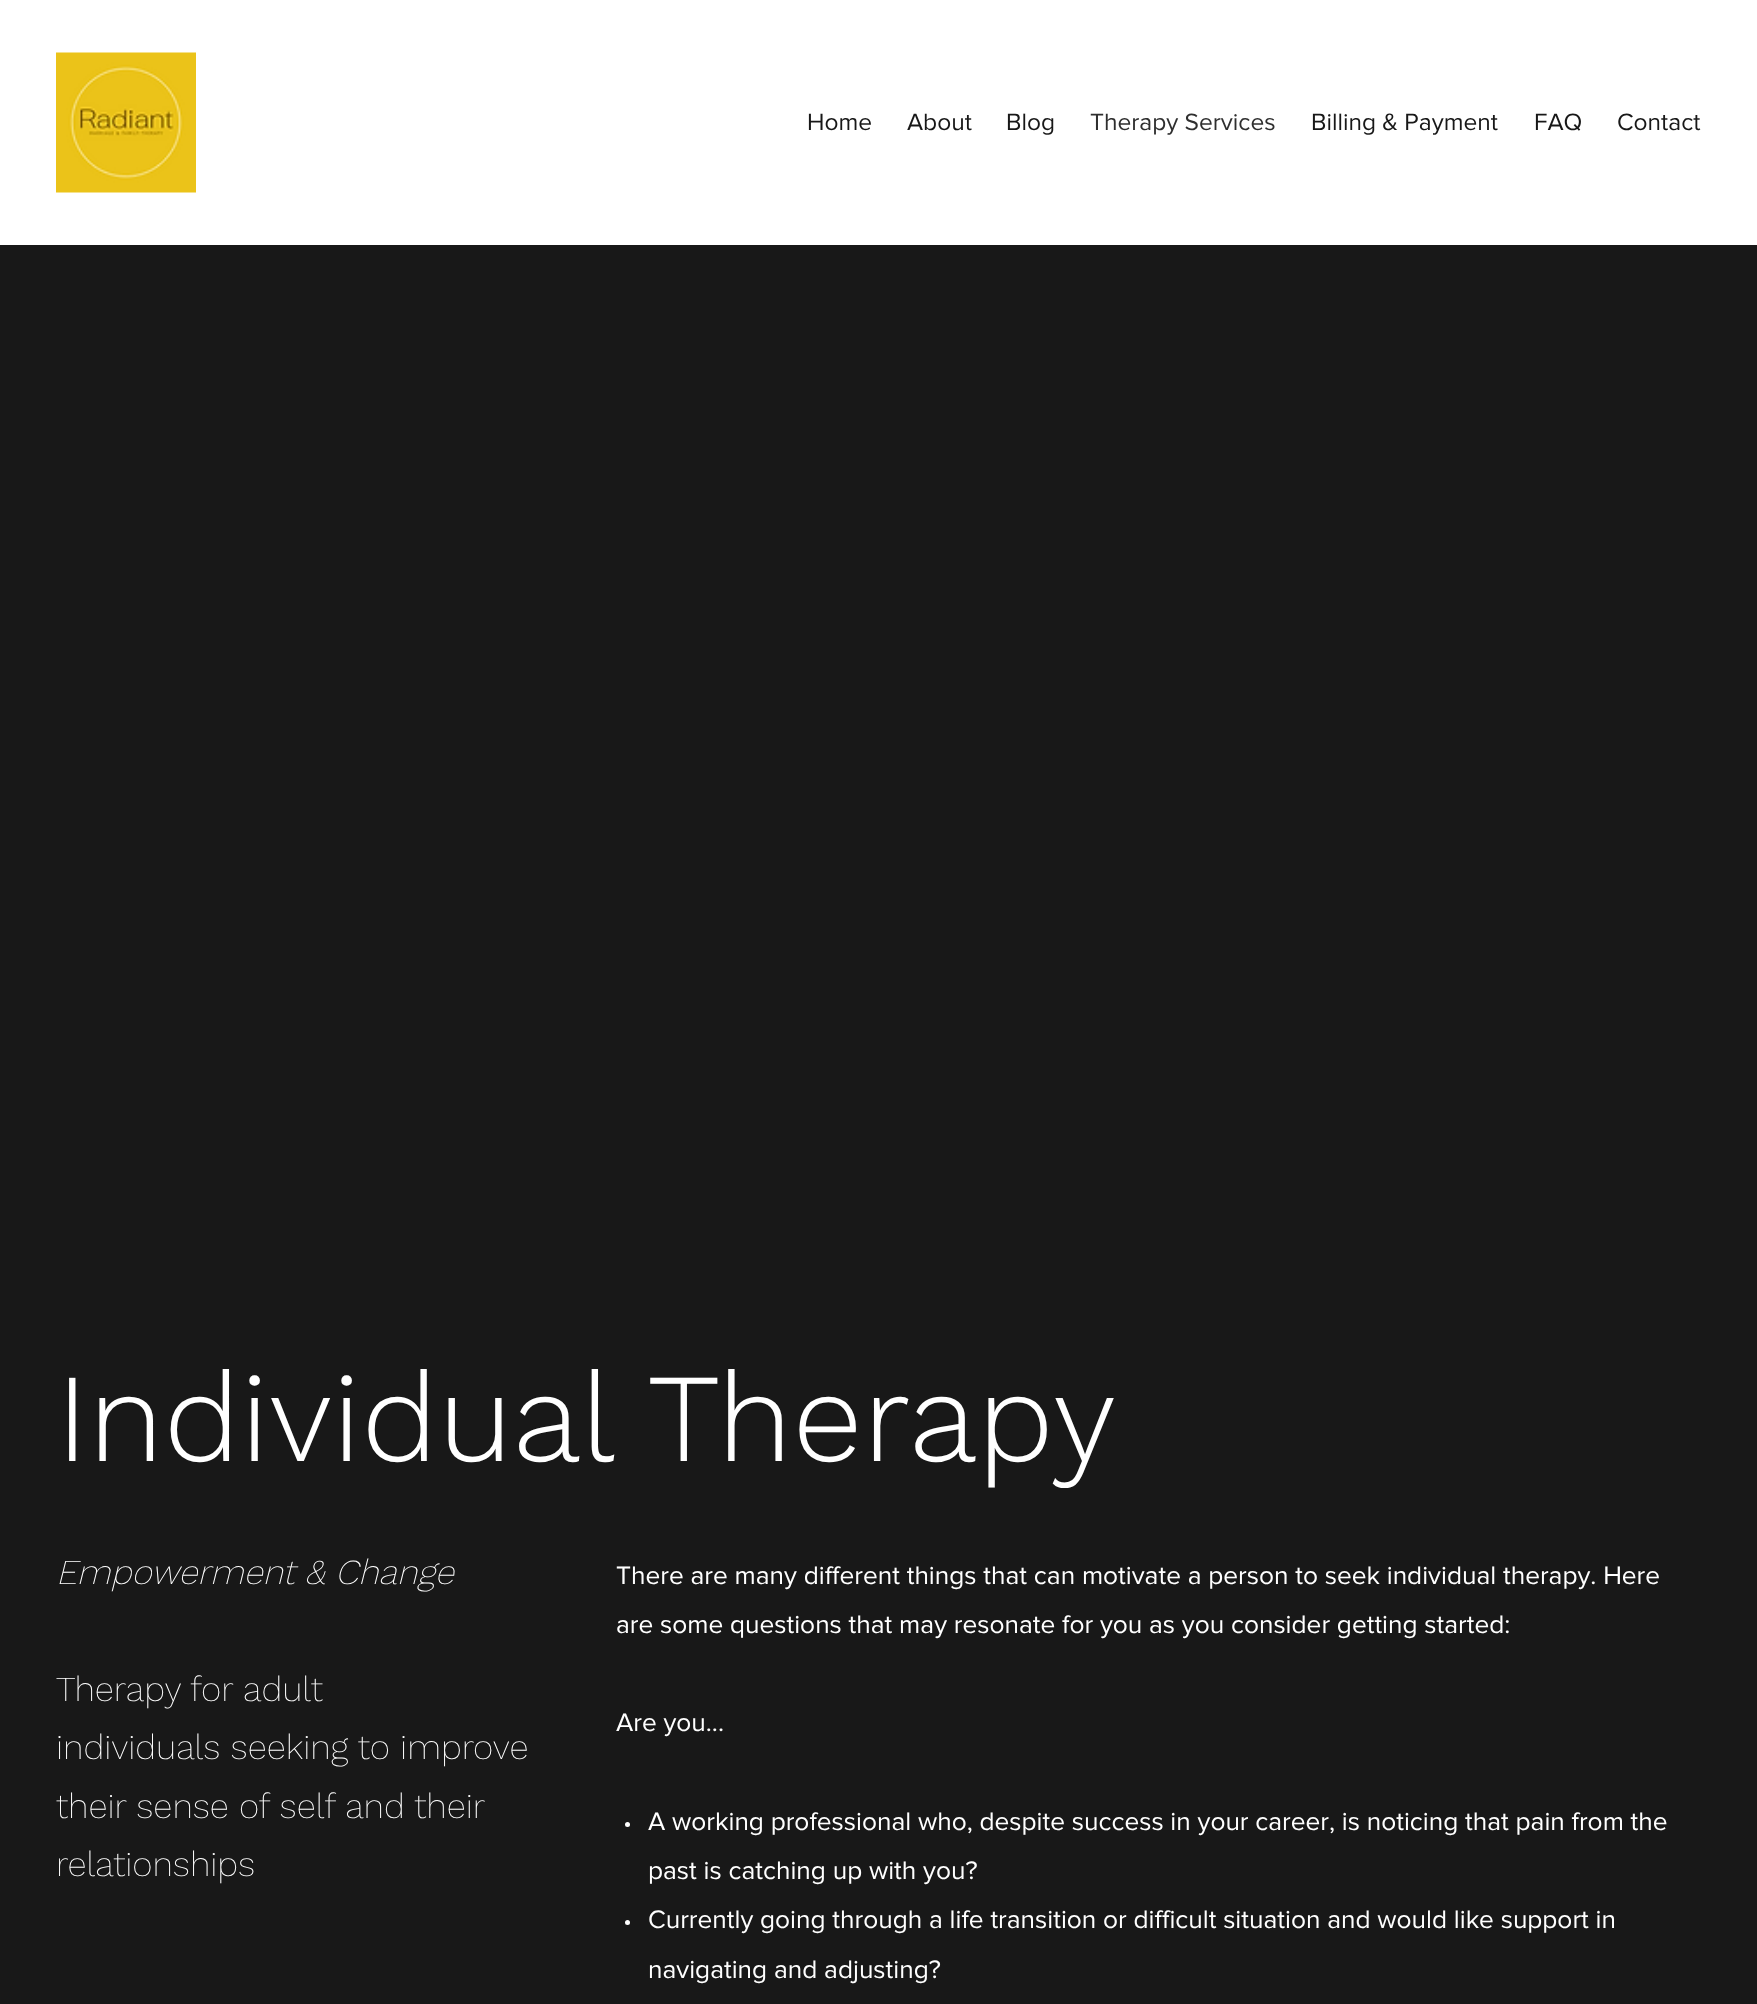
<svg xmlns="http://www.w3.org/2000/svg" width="1757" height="2004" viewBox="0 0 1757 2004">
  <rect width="100%" height="100%" fill="rgb(255,255,255)"/>
  <image x="56" y="52" width="140" height="141" href="pic1.png"/>
  <g font-family="'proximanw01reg'" font-size="24.5" fill="rgb(24,24,24)">
    <text x="807" y="130">Home</text>
    <text x="907" y="130">About</text>
    <text x="1006" y="130">Blog</text>
  </g>
  <text x="1090" y="130" font-family="'proximanw01reg'" font-size="24.5" fill="rgb(47,47,47)">Therapy Services</text>
  <g font-family="'proximanw01reg'" font-size="24.5" fill="rgb(24,24,24)">
    <text x="1311" y="130">Billing &amp; Payment</text>
    <text x="1534" y="130">FAQ</text>
    <text x="1617" y="130">Contact</text>
  </g>
  <rect x="0" y="245" width="1757" height="1759" fill="rgb(24,24,24)"/>
  <text x="56" y="1461" font-family="Work Sans" font-size="126" font-weight="300" fill="rgb(255,255,255)">Individual Therapy</text>
  <text x="56" y="1584" font-family="Work Sans" font-size="35" font-weight="200" font-style="italic" fill="rgb(255,255,255)">Empowerment &amp; Change</text>
  <g font-family="Work Sans" font-size="35" font-weight="200" fill="rgb(255,255,255)">
    <text>
      <tspan x="56" y="1701">Therapy for adult</tspan>
      <tspan x="56" y="1759">individuals seeking to improve</tspan>
      <tspan x="56" y="1818">their sense of self and their</tspan>
      <tspan x="56" y="1876">relationships</tspan>
    </text>
  </g>
  <g font-family="'proximanw01reg'" font-size="26.25" fill="rgb(255,255,255)">
    <text>
      <tspan x="616" y="1584">There are many different things that can motivate a person to seek individual therapy. Here</tspan>
      <tspan x="616" y="1633">are some questions that may resonate for you as you consider getting started:</tspan>
    </text>
    <text x="616" y="1731">Are you...</text>
  </g>
  <circle cx="627.5" cy="1824.5" r="2.5" fill="rgb(255,255,255)"/>
  <g font-family="'proximanw01reg'" font-size="26.25" fill="rgb(255,255,255)">
    <text>
      <tspan x="648" y="1830">A working professional who, despite success in your career, is noticing that pain from the</tspan>
      <tspan x="648" y="1879">past is catching up with you?</tspan>
    </text>
  </g>
  <circle cx="627.5" cy="1922.5" r="2.5" fill="rgb(255,255,255)"/>
  <g font-family="'proximanw01reg'" font-size="26.25" fill="rgb(255,255,255)">
    <text>
      <tspan x="648" y="1928">Currently going through a life transition or difficult situation and would like support in</tspan>
      <tspan x="648" y="1978">navigating and adjusting?</tspan>
    </text>
  </g>
</svg>
